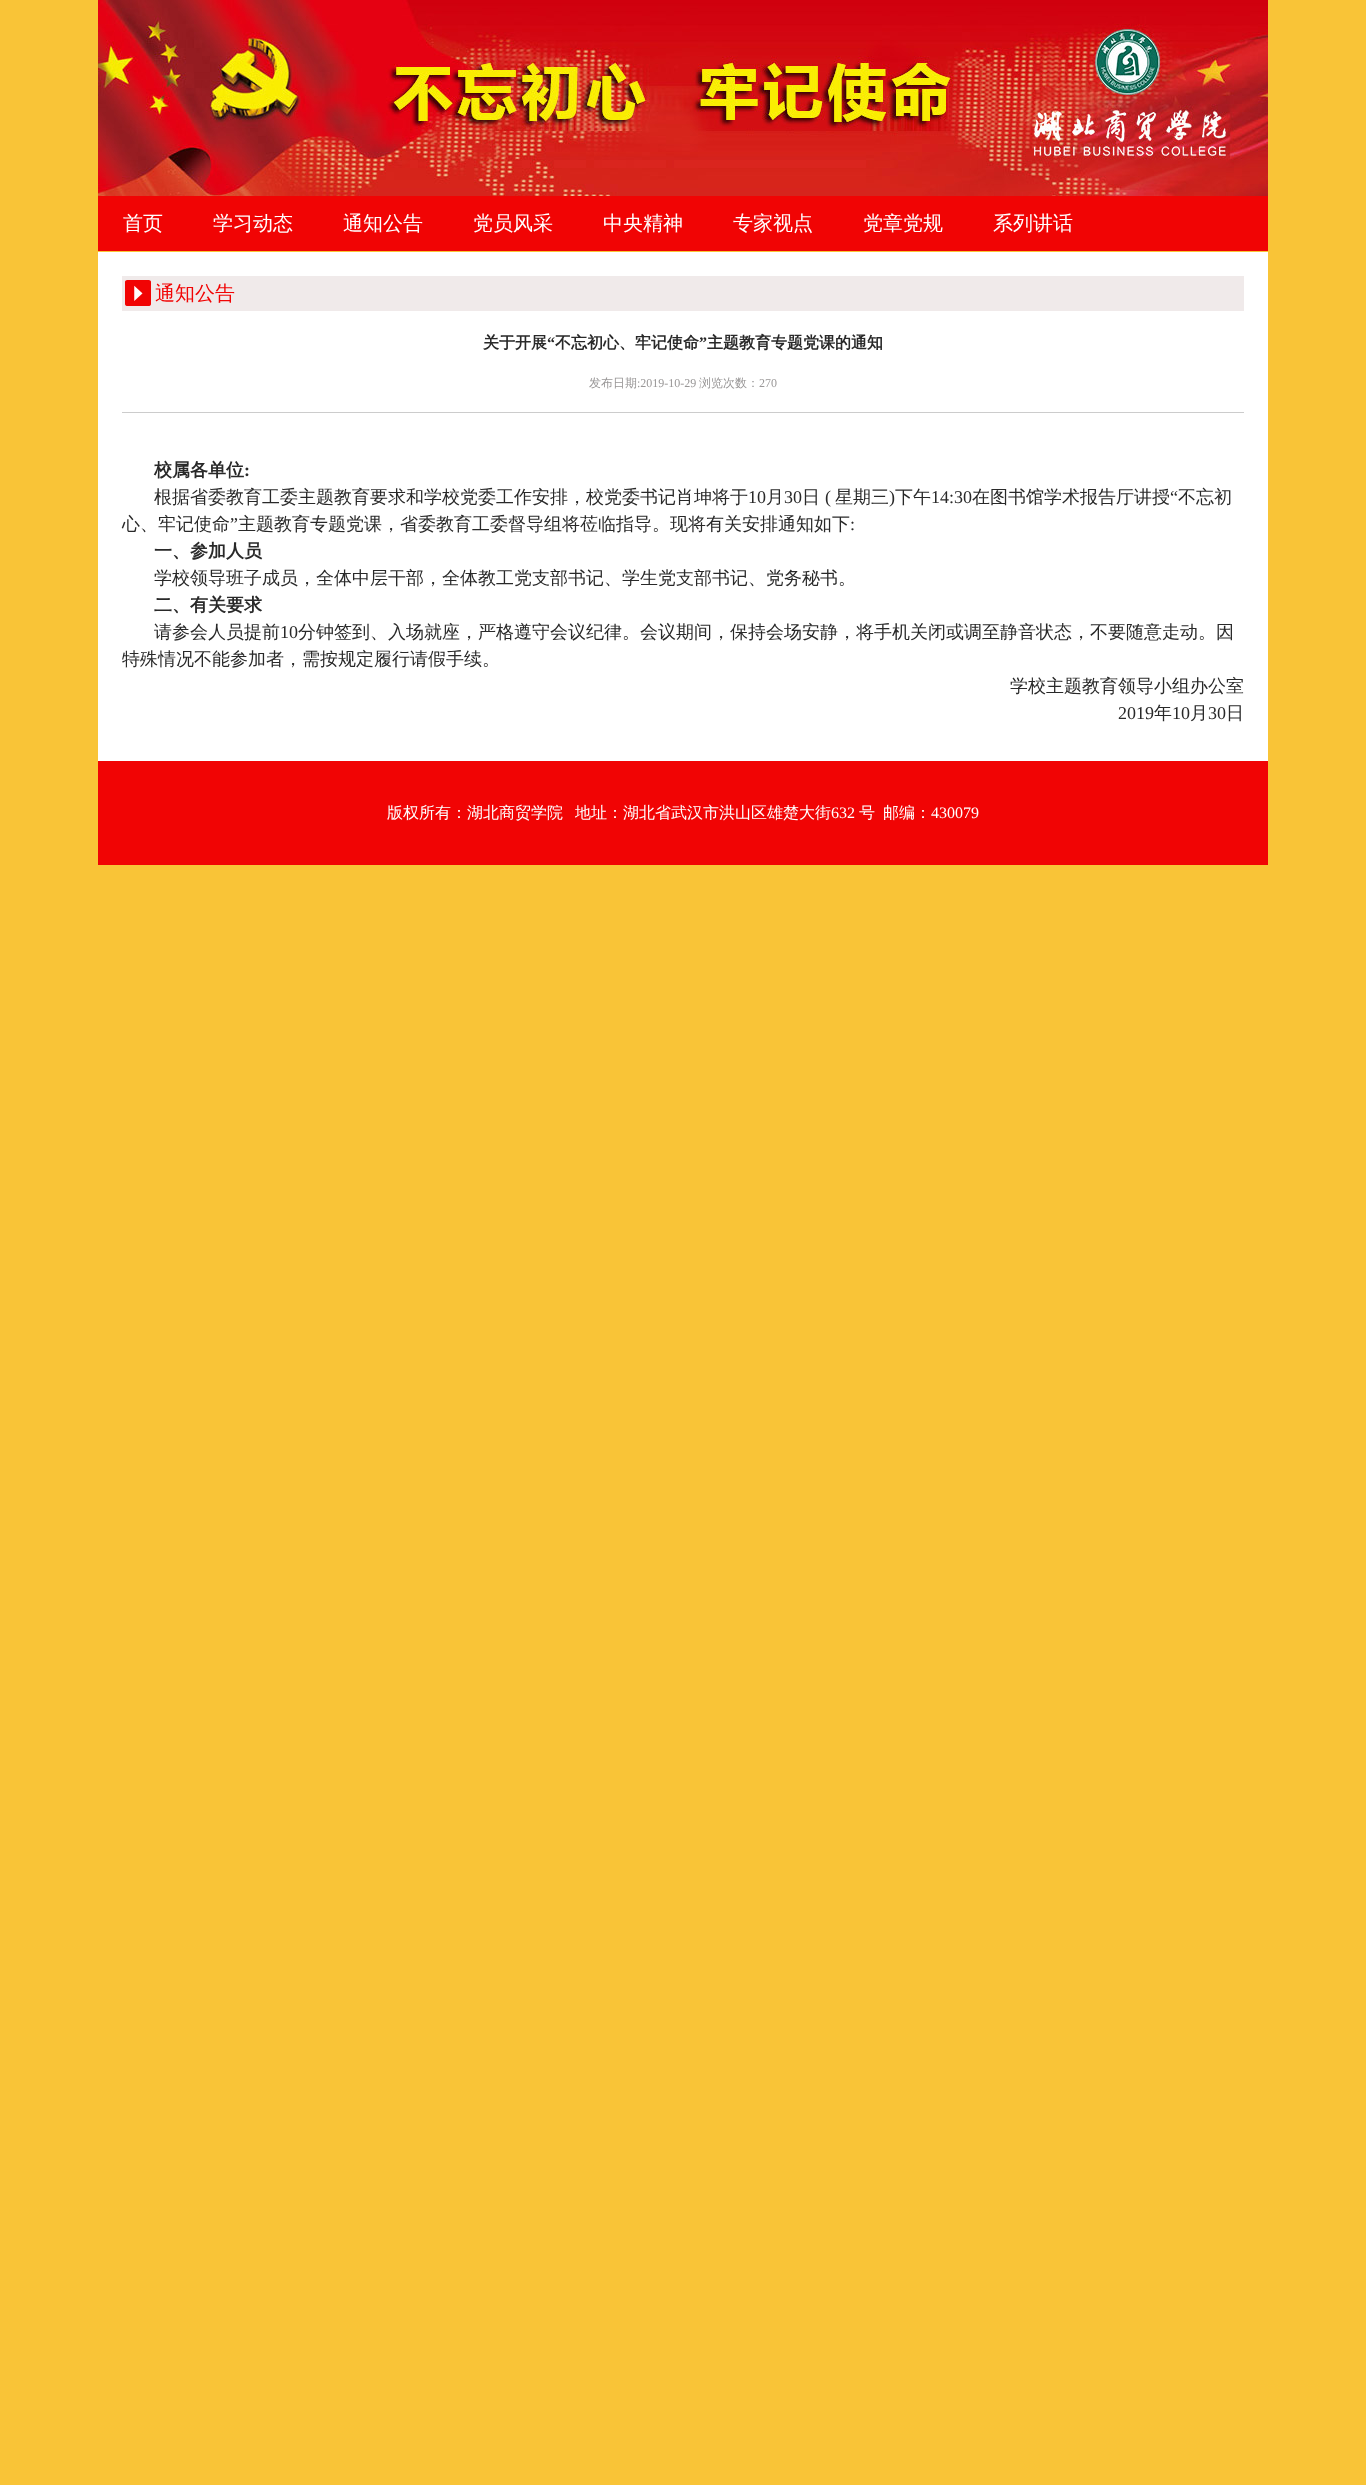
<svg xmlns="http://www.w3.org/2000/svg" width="1366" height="2485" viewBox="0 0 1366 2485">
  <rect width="100%" height="100%" fill="rgb(249,196,55)"/>
  <image x="98" y="0" width="1170" height="196" href="pic1.png"/>
  <rect x="98" y="196" width="1170" height="55" fill="rgb(241,4,4)"/>
  <g font-family="WenQuanYi Zen Hei" font-size="20" font-weight="500" fill="rgb(255,255,255)">
    <text x="123" y="230">首页</text>
    <text x="213" y="230">学习动态</text>
    <text x="343" y="230">通知公告</text>
    <text x="473" y="230">党员风采</text>
    <text x="603" y="230">中央精神</text>
    <text x="733" y="230">专家视点</text>
    <text x="863" y="230">党章党规</text>
    <text x="993" y="230">系列讲话</text>
  </g>
  <rect x="98" y="252" width="1170" height="509" fill="rgb(255,255,255)"/>
  <rect x="122" y="276" width="1122" height="35" fill="rgb(240,234,234)"/>
  <image x="125" y="280" width="26" height="26" href="pic2.png"/>
  <text x="155" y="300" font-family="WenQuanYi Zen Hei" font-size="20" font-weight="500" fill="rgb(241,4,4)">通知公告</text>
  <text x="483" y="348" font-family="WenQuanYi Zen Hei" font-size="16" font-weight="bold" fill="rgb(41,41,41)">关于开展</text>
  <text x="547" y="348" font-family="Liberation Serif" font-size="16" font-weight="bold" fill="rgb(41,41,41)">“</text>
  <text x="555" y="348" font-family="WenQuanYi Zen Hei" font-size="16" font-weight="bold" fill="rgb(41,41,41)">不忘初心、牢记使命</text>
  <text x="699" y="348" font-family="Liberation Serif" font-size="16" font-weight="bold" fill="rgb(41,41,41)">”</text>
  <text x="707" y="348" font-family="WenQuanYi Zen Hei" font-size="16" font-weight="bold" fill="rgb(41,41,41)">主题教育专题党课的通知</text>
  <rect x="122" y="412" width="1122" height="1" fill="rgb(204,204,204)"/>
  <text x="589" y="387" font-family="WenQuanYi Zen Hei" font-size="12" font-weight="500" fill="rgb(153,151,151)">发布日期</text>
  <text x="637" y="387" font-family="Liberation Serif" font-size="12" fill="rgb(153,151,151)">:2019-10-29</text>
  <text x="699" y="387" font-family="WenQuanYi Zen Hei" font-size="12" font-weight="500" fill="rgb(153,151,151)">浏览次数：</text>
  <text x="759" y="387" font-family="Liberation Serif" font-size="12" fill="rgb(153,151,151)">270</text>
  <text x="154" y="476" font-family="WenQuanYi Zen Hei" font-size="18" font-weight="bold" fill="rgb(41,41,41)">校属各单位</text>
  <text x="244" y="476" font-family="Liberation Serif" font-size="18" font-weight="bold" fill="rgb(41,41,41)">:</text>
  <text x="154" y="503" font-family="WenQuanYi Zen Hei" font-size="18" font-weight="500" fill="rgb(41,41,41)">根据省委教育工委主题教育要求和学校党委工作安排，校党委书记肖坤将于</text>
  <text x="748" y="503" font-family="Liberation Serif" font-size="18" fill="rgb(41,41,41)">10</text>
  <text x="766" y="503" font-family="WenQuanYi Zen Hei" font-size="18" font-weight="500" fill="rgb(41,41,41)">月</text>
  <text x="784" y="503" font-family="Liberation Serif" font-size="18" fill="rgb(41,41,41)">30</text>
  <text x="802" y="503" font-family="WenQuanYi Zen Hei" font-size="18" font-weight="500" fill="rgb(41,41,41)">日</text>
  <text x="825" y="503" font-family="Liberation Serif" font-size="18" fill="rgb(41,41,41)">(</text>
  <text x="835" y="503" font-family="WenQuanYi Zen Hei" font-size="18" font-weight="500" fill="rgb(41,41,41)">星期三</text>
  <text x="889" y="503" font-family="Liberation Serif" font-size="18" fill="rgb(41,41,41)">)</text>
  <text x="895" y="503" font-family="WenQuanYi Zen Hei" font-size="18" font-weight="500" fill="rgb(41,41,41)">下午</text>
  <text x="931" y="503" font-family="Liberation Serif" font-size="18" fill="rgb(41,41,41)">14:30</text>
  <text x="972" y="503" font-family="WenQuanYi Zen Hei" font-size="18" font-weight="500" fill="rgb(41,41,41)">在图书馆学术报告厅讲授</text>
  <text x="1170" y="503" font-family="Liberation Serif" font-size="18" fill="rgb(41,41,41)">“</text>
  <g font-family="WenQuanYi Zen Hei" font-size="18" font-weight="500" fill="rgb(41,41,41)">
    <text x="1178" y="503">不忘初</text>
    <text x="122" y="530">心、牢记使命</text>
  </g>
  <text x="230" y="530" font-family="Liberation Serif" font-size="18" fill="rgb(41,41,41)">”</text>
  <text x="238" y="530" font-family="WenQuanYi Zen Hei" font-size="18" font-weight="500" fill="rgb(41,41,41)">主题教育专题党课，省委教育工委督导组将莅临指导。现将有关安排通知如下</text>
  <text x="850" y="530" font-family="Liberation Serif" font-size="18" fill="rgb(41,41,41)">:</text>
  <text x="154" y="557" font-family="WenQuanYi Zen Hei" font-size="18" font-weight="bold" fill="rgb(41,41,41)">一、参加人员</text>
  <text x="154" y="584" font-family="WenQuanYi Zen Hei" font-size="18" font-weight="500" fill="rgb(41,41,41)">学校领导班子成员，全体中层干部，全体教工党支部书记、学生党支部书记、党务秘书。</text>
  <text x="154" y="611" font-family="WenQuanYi Zen Hei" font-size="18" font-weight="bold" fill="rgb(41,41,41)">二、有关要求</text>
  <text x="154" y="638" font-family="WenQuanYi Zen Hei" font-size="18" font-weight="500" fill="rgb(41,41,41)">请参会人员提前</text>
  <text x="280" y="638" font-family="Liberation Serif" font-size="18" fill="rgb(41,41,41)">10</text>
  <g font-family="WenQuanYi Zen Hei" font-size="18" font-weight="500" fill="rgb(41,41,41)">
    <text x="298" y="638">分钟签到、入场就座，严格遵守会议纪律。会议期间，保持会场安静，将手机关闭或调至静音状态，不要随意走动。因</text>
    <text x="122" y="665">特殊情况不能参加者，需按规定履行请假手续。</text>
    <text x="1010" y="692">学校主题教育领导小组办公室</text>
  </g>
  <text x="1118" y="719" font-family="Liberation Serif" font-size="18" fill="rgb(41,41,41)">2019</text>
  <text x="1154" y="719" font-family="WenQuanYi Zen Hei" font-size="18" font-weight="500" fill="rgb(41,41,41)">年</text>
  <text x="1172" y="719" font-family="Liberation Serif" font-size="18" fill="rgb(41,41,41)">10</text>
  <text x="1190" y="719" font-family="WenQuanYi Zen Hei" font-size="18" font-weight="500" fill="rgb(41,41,41)">月</text>
  <text x="1208" y="719" font-family="Liberation Serif" font-size="18" fill="rgb(41,41,41)">30</text>
  <text x="1226" y="719" font-family="WenQuanYi Zen Hei" font-size="18" font-weight="500" fill="rgb(41,41,41)">日</text>
  <rect x="98" y="761" width="1170" height="104" fill="rgb(241,4,4)"/>
  <g font-family="WenQuanYi Zen Hei" font-size="16" font-weight="500" fill="rgb(255,255,255)">
    <text x="387" y="818">版权所有：湖北商贸学院</text>
    <text x="575" y="818">地址：湖北省武汉市洪山区雄楚大街</text>
  </g>
  <text x="831" y="818" font-family="Liberation Serif" font-size="16" fill="rgb(255,255,255)">632</text>
  <g font-family="WenQuanYi Zen Hei" font-size="16" font-weight="500" fill="rgb(255,255,255)">
    <text x="859" y="818">号</text>
    <text x="883" y="818">邮编：</text>
  </g>
  <text x="931" y="818" font-family="Liberation Serif" font-size="16" fill="rgb(255,255,255)">430079</text>
</svg>
